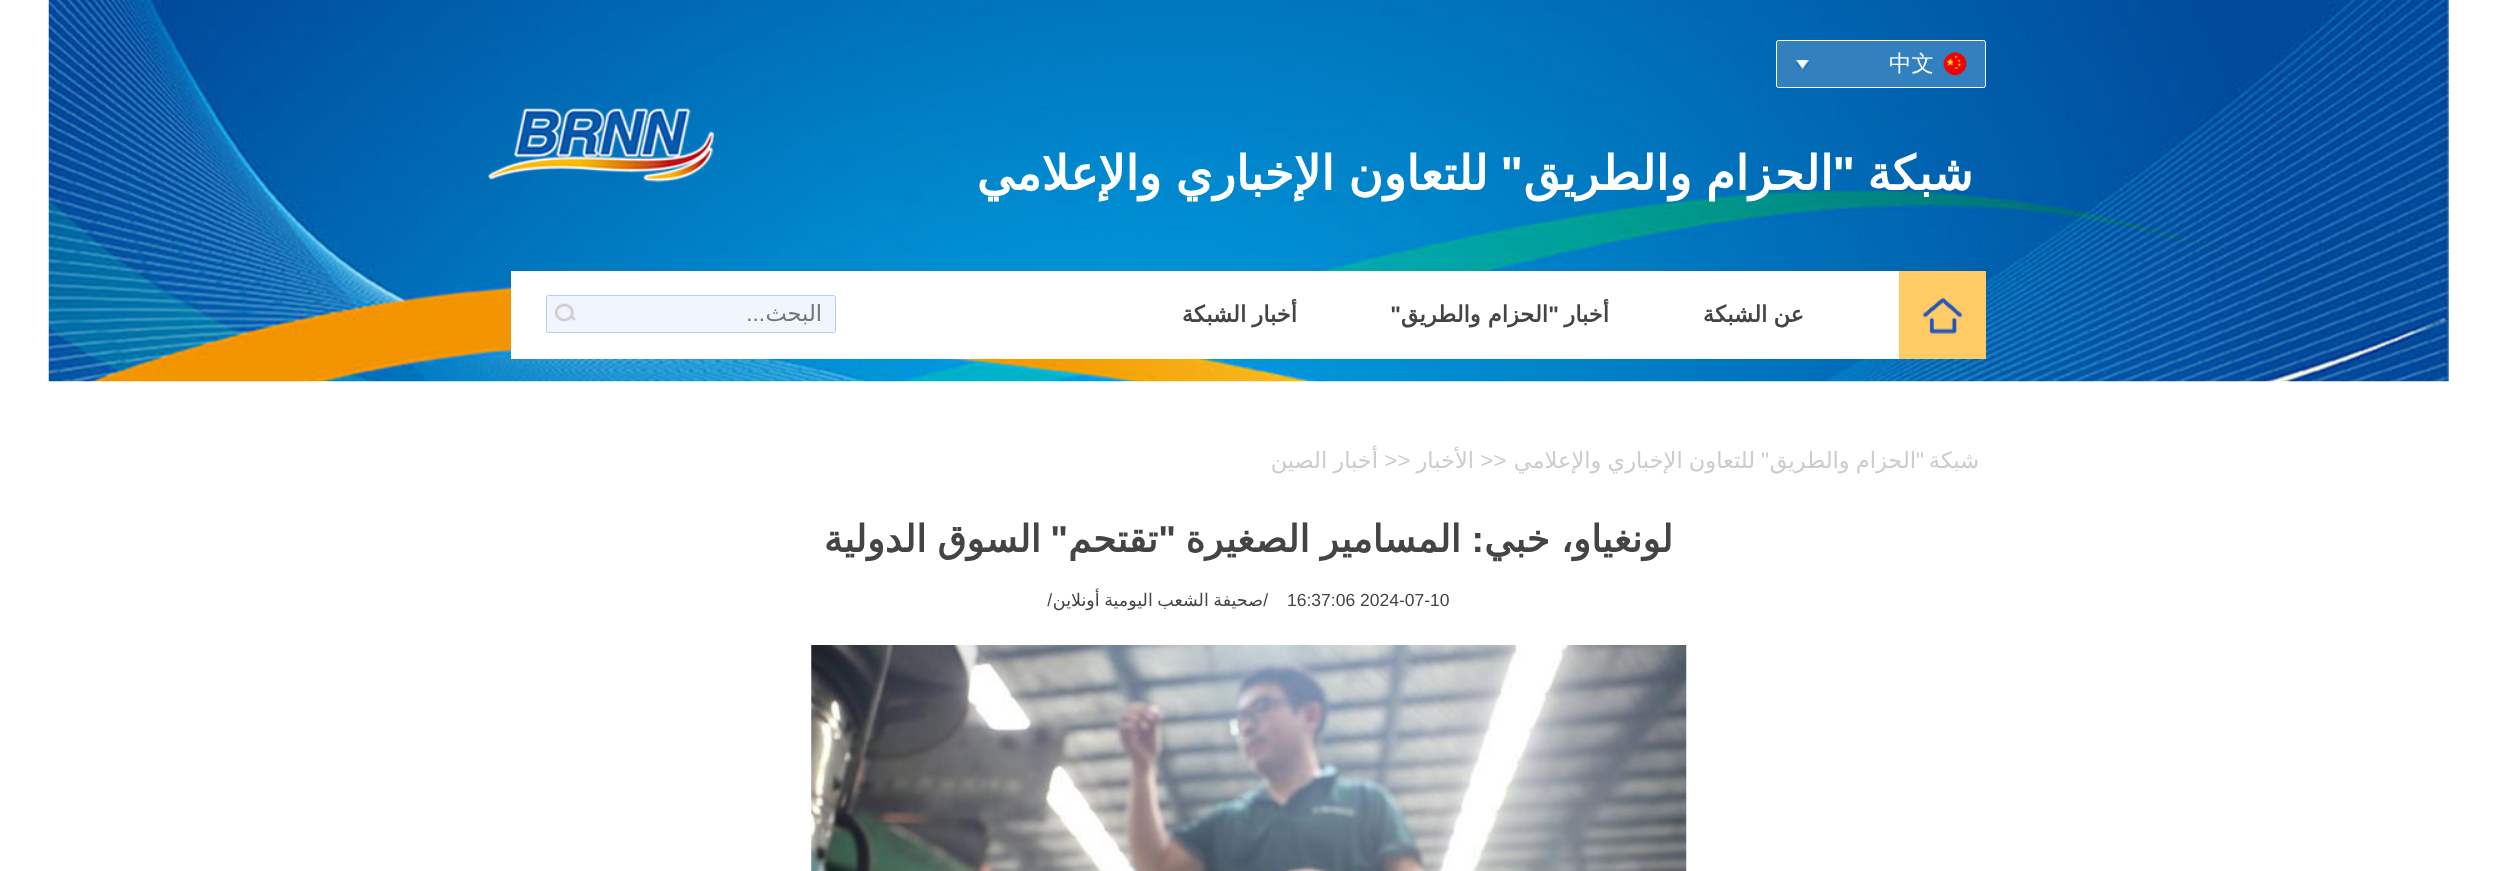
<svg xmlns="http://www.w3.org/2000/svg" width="2496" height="871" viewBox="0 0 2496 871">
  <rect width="100%" height="100%" fill="rgb(255,255,255)"/>
  <image x="48" y="0" width="2401" height="382" href="pic1.png"/>
  <rect x="1776.5" y="40.5" width="209" height="47" rx="2" fill="rgb(51,128,190)" stroke="rgb(255,255,255)"/>
  <image x="1943" y="52" width="24" height="23" href="pic2.png"/>
  <text x="1889" y="71" font-family="WenQuanYi Zen Hei" font-size="22.5" font-weight="500" fill="rgb(255,255,255)">中文</text>
  <image x="1796" y="60" width="13" height="9" href="pic3.png"/>
  <text x="1973" y="190" font-family="DejaVu Sans" font-size="47.5" font-weight="bold" direction="rtl" fill="rgb(255,255,255)">شبكة</text>
  <text x="1855" y="190" font-family="Liberation Sans" font-size="47.5" font-weight="bold" direction="rtl" fill="rgb(255,255,255)">"</text>
  <text x="1833" y="190" word-spacing="-1" font-family="DejaVu Sans" font-size="47.5" font-weight="bold" direction="rtl" fill="rgb(255,255,255)">الحزام والطريق</text>
  <text x="1523" y="190" font-family="Liberation Sans" font-size="47.5" font-weight="bold" direction="rtl" fill="rgb(255,255,255)">"</text>
  <text x="1488" y="190" word-spacing="-1" font-family="DejaVu Sans" font-size="47.5" font-weight="bold" direction="rtl" fill="rgb(255,255,255)">للتعاون الإخباري والإعلامي</text>
  <rect x="511" y="271" width="1388" height="88" fill="rgb(255,255,255)"/>
  <rect x="1899" y="271" width="87" height="88" fill="rgb(255,203,101)"/>
  <image x="1922" y="297" width="41" height="37" href="pic4.png"/>
  <g font-family="DejaVu Sans" font-size="22.5" font-weight="bold" direction="rtl" fill="rgb(68,68,68)">
    <text x="1804" y="322" word-spacing="-1">عن الشبكة</text>
    <text x="1609" y="322">أخبار</text>
  </g>
  <text x="1559" y="322" font-family="Liberation Sans" font-size="22.5" font-weight="bold" direction="rtl" fill="rgb(68,68,68)">"</text>
  <text x="1548" y="322" font-family="DejaVu Sans" font-size="22.5" font-weight="bold" direction="rtl" fill="rgb(68,68,68)">الحزام والطريق</text>
  <text x="1401" y="322" font-family="Liberation Sans" font-size="22.5" font-weight="bold" direction="rtl" fill="rgb(68,68,68)">"</text>
  <text x="1297" y="322" word-spacing="-1" font-family="DejaVu Sans" font-size="22.5" font-weight="bold" direction="rtl" fill="rgb(68,68,68)">أخبار الشبكة</text>
  <rect x="546.5" y="295.5" width="289" height="37" rx="2" fill="rgb(241,245,253)" stroke="rgb(180,204,245)"/>
  <text x="822" y="321" font-family="DejaVu Sans" font-size="22.5" direction="rtl" fill="rgb(117,117,117)">البحث</text>
  <text x="765" y="321" font-family="Liberation Sans" font-size="22.5" direction="rtl" fill="rgb(117,117,117)">...</text>
  <image x="555" y="303" width="22" height="19" href="pic5.png"/>
  <text x="1979" y="468" font-family="DejaVu Sans" font-size="22.5" direction="rtl" fill="rgb(204,204,204)">شبكة</text>
  <text x="1924" y="468" font-family="Liberation Sans" font-size="22.5" direction="rtl" fill="rgb(204,204,204)">"</text>
  <text x="1916" y="468" word-spacing="-1" font-family="DejaVu Sans" font-size="22.5" direction="rtl" fill="rgb(204,204,204)">الحزام والطريق</text>
  <text x="1769" y="468" font-family="Liberation Sans" font-size="22.5" direction="rtl" fill="rgb(204,204,204)">"</text>
  <text x="1755" y="468" word-spacing="-1" font-family="DejaVu Sans" font-size="22.5" direction="rtl" fill="rgb(204,204,204)">للتعاون الإخباري والإعلامي</text>
  <text x="1480" y="468" font-family="Liberation Sans" font-size="22.5" fill="rgb(204,204,204)">&gt;&gt;</text>
  <text x="1474" y="468" font-family="DejaVu Sans" font-size="22.5" direction="rtl" fill="rgb(204,204,204)">الأخبار</text>
  <text x="1384" y="468" font-family="Liberation Sans" font-size="22.5" fill="rgb(204,204,204)">&gt;&gt;</text>
  <text x="1378" y="468" word-spacing="-1" font-family="DejaVu Sans" font-size="22.5" direction="rtl" fill="rgb(204,204,204)">أخبار الصين</text>
  <text x="1673" y="552" word-spacing="-1" font-family="DejaVu Sans" font-size="37.5" font-weight="bold" direction="rtl" fill="rgb(68,68,68)">لونغياو، خبي</text>
  <text x="1484" y="552" font-family="Liberation Sans" font-size="37.5" font-weight="bold" direction="rtl" fill="rgb(68,68,68)">:</text>
  <text x="1461" y="552" word-spacing="-1" font-family="DejaVu Sans" font-size="37.5" font-weight="bold" direction="rtl" fill="rgb(68,68,68)">المسامير الصغيرة</text>
  <text x="1176" y="552" font-family="Liberation Sans" font-size="37.5" font-weight="bold" direction="rtl" fill="rgb(68,68,68)">"</text>
  <text x="1158" y="552" font-family="DejaVu Sans" font-size="37.5" font-weight="bold" direction="rtl" fill="rgb(68,68,68)">تقتحم</text>
  <text x="1068" y="552" font-family="Liberation Sans" font-size="37.5" font-weight="bold" direction="rtl" fill="rgb(68,68,68)">"</text>
  <text x="1041" y="552" word-spacing="-1" font-family="DejaVu Sans" font-size="37.5" font-weight="bold" direction="rtl" fill="rgb(68,68,68)">السوق الدولية</text>
  <text x="1287" y="606" font-family="Liberation Sans" font-size="17.5" fill="rgb(68,68,68)">16:37:06 2024-07-10</text>
  <text x="1263" y="606" word-spacing="-1" font-family="DejaVu Sans" font-size="17.5" direction="rtl" fill="rgb(68,68,68)">صحيفة الشعب اليومية أونلاين</text>
  <g font-family="Liberation Sans" font-size="17.5" direction="rtl" fill="rgb(68,68,68)">
    <text x="1268" y="606">/</text>
    <text x="1052" y="606">/</text>
  </g>
  <image x="811" y="645" width="876" height="226" href="pic6.png"/>
</svg>
